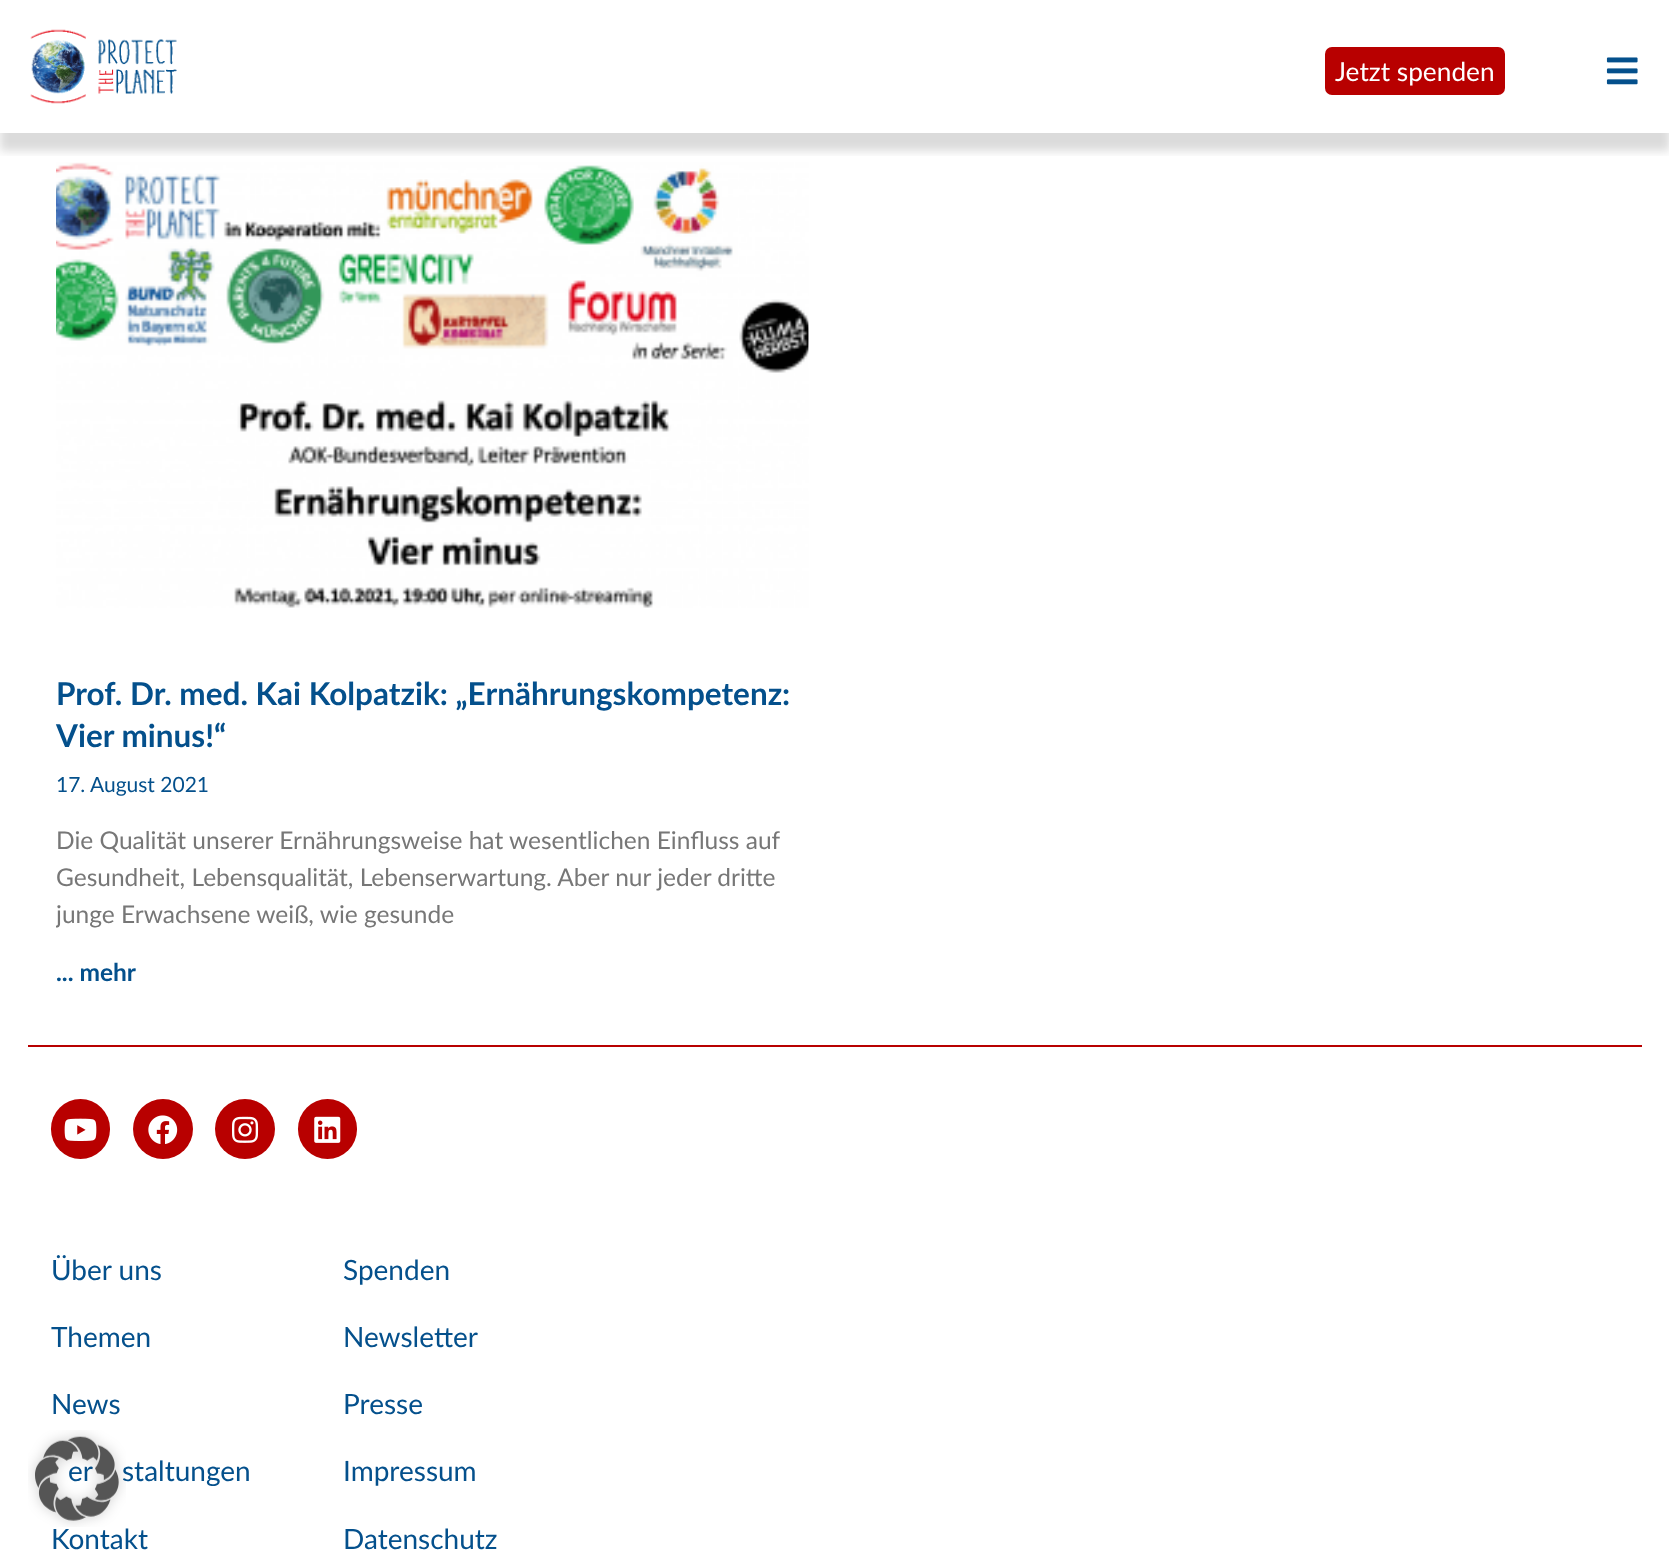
<svg xmlns="http://www.w3.org/2000/svg" width="1669" height="1555" viewBox="0 0 1669 1555">
  <defs>
    <clipPath id="clip1"><rect x="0" y="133" width="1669" height="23"/></clipPath>
    <clipPath id="clip2"><rect x="56" y="140" width="753" height="852"/></clipPath>
  </defs>
  <rect width="100%" height="100%" fill="rgb(255,255,255)"/>
  <image x="56" y="162" width="753" height="446" href="pic3.png"/>
  <g clip-path="url(#clip1)">
    <rect x="0" y="18" width="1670" height="133" fill="rgba(0,0,0,0.14)" filter="blur(5px)"/>
  </g>
  <image x="30" y="29" width="147" height="75" href="pic1.png"/>
  <rect x="1325" y="47" width="180" height="48" rx="7" fill="rgb(184,0,0)"/>
  <text x="1335" y="81" font-family="Lato" font-size="26.25" fill="rgb(255,255,255)">Jetzt spenden</text>
  <image x="1606" y="57" width="32" height="28" href="pic2.png"/>
  <g font-family="Lato" font-size="31.5" font-weight="bold" fill="rgb(4,80,140)">
    <text>
      <tspan x="56" y="705">Prof. Dr. med. Kai Kolpatzik: „Ernährungskompetenz:</tspan>
      <tspan x="56" y="747">Vier minus!“</tspan>
    </text>
  </g>
  <text x="56" y="792" font-family="Lato" font-size="21" fill="rgb(4,80,140)">17. August 2021</text>
  <g font-family="Lato" font-size="24.5" fill="rgb(119,119,119)">
    <text>
      <tspan x="56" y="849">Die Qualität unserer Ernährungsweise hat wesentlichen Einfluss auf</tspan>
      <tspan x="56" y="886">Gesundheit, Lebensqualität, Lebenserwartung. Aber nur jeder dritte</tspan>
    </text>
  </g>
  <g clip-path="url(#clip2)">
    <text x="56" y="923" font-family="Lato" font-size="24.5" fill="rgb(119,119,119)">junge Erwachsene weiß, wie gesunde</text>
  </g>
  <text x="56" y="981" font-family="Lato" font-size="24.5" font-weight="bold" fill="rgb(4,80,140)">... mehr</text>
  <rect x="28" y="1045" width="1614" height="2" fill="rgb(184,0,0)"/>
  <rect x="51" y="1099" width="59" height="60" rx="29.5" fill="rgb(184,0,0)"/>
  <image x="64" y="1118" width="33" height="23" href="pic4.png"/>
  <circle cx="163" cy="1129" r="30" fill="rgb(184,0,0)"/>
  <image x="148" y="1115" width="30" height="29" href="pic5.png"/>
  <circle cx="245" cy="1129" r="30" fill="rgb(184,0,0)"/>
  <image x="232" y="1116" width="27" height="27" href="pic6.png"/>
  <rect x="298" y="1099" width="59" height="60" rx="29.5" fill="rgb(184,0,0)"/>
  <image x="314" y="1116" width="27" height="27" href="pic7.png"/>
  <g font-family="Lato" font-size="28" fill="rgb(4,80,140)">
    <text x="51" y="1280">Über uns</text>
    <text x="51" y="1347">Themen</text>
    <text x="51" y="1414">News</text>
    <text x="68" y="1481">er</text>
    <text x="122" y="1481">staltungen</text>
    <text x="51" y="1549">Kontakt</text>
    <text x="343" y="1280">Spenden</text>
    <text x="343" y="1347">Newsletter</text>
    <text x="343" y="1414">Presse</text>
    <text x="343" y="1481">Impressum</text>
    <text x="343" y="1549">Datenschutz</text>
  </g>
  <image x="28" y="1430" width="98" height="97" href="pic8.png"/>
</svg>
